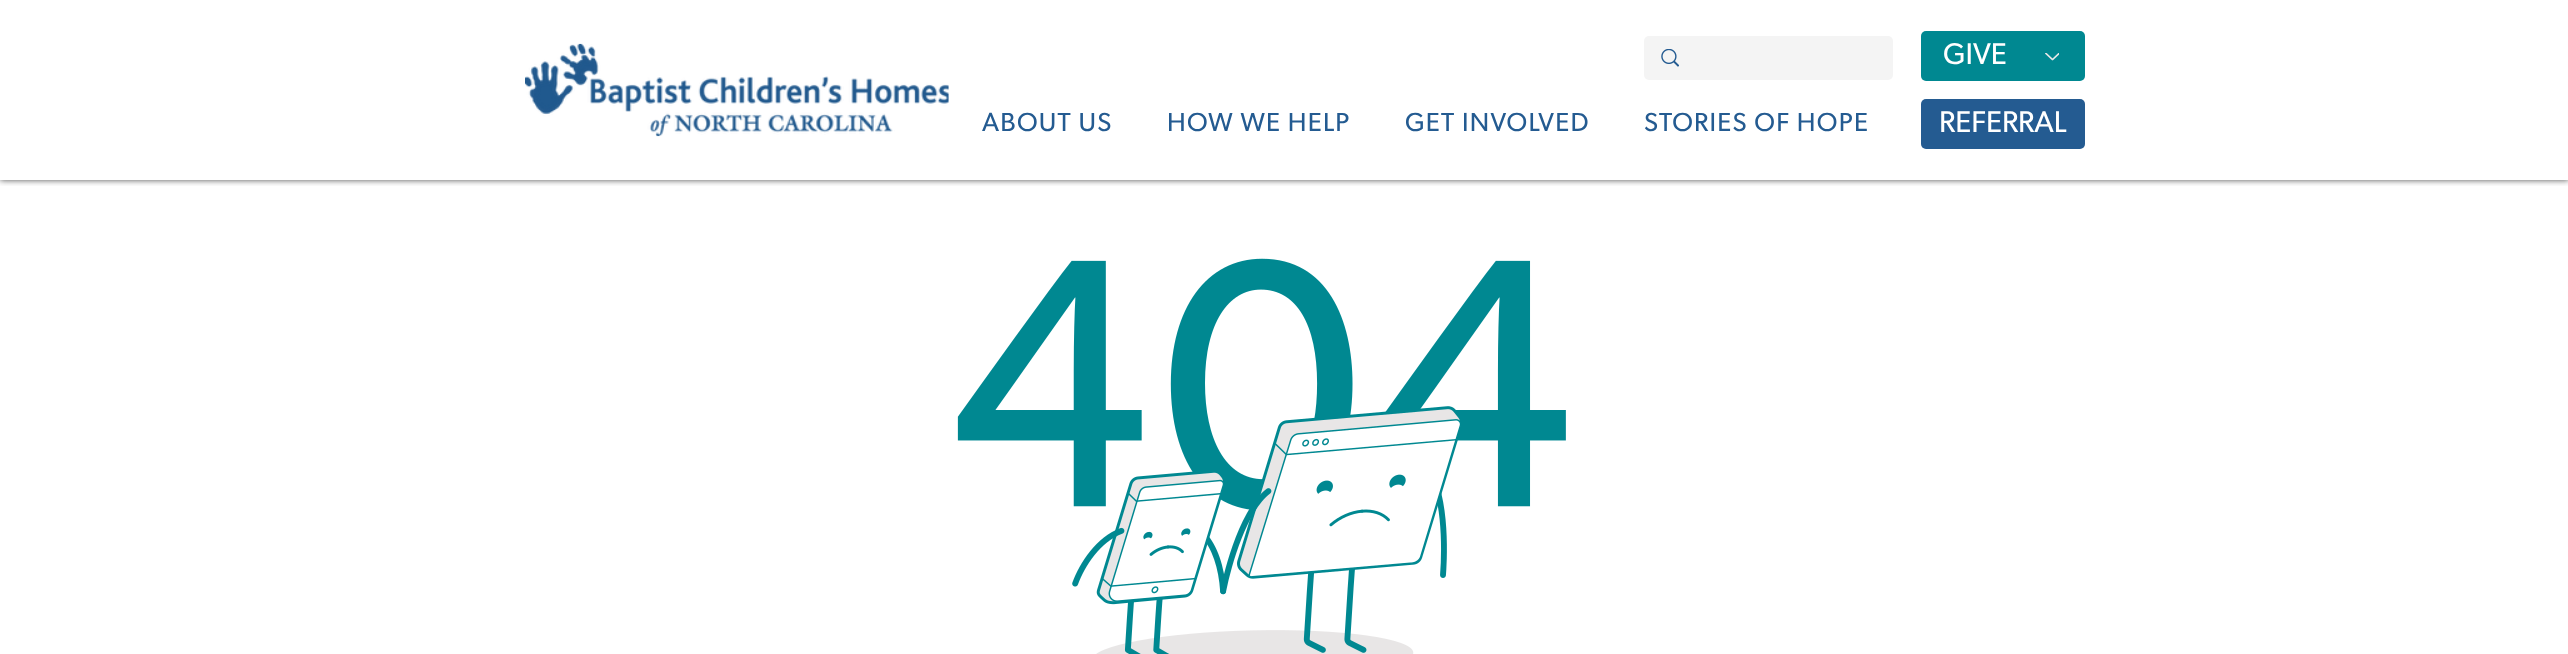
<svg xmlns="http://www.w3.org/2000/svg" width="2568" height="654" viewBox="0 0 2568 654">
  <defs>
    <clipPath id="clip1"><rect x="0" y="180" width="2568" height="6"/></clipPath>
  </defs>
  <rect width="100%" height="100%" fill="rgb(255,255,255)"/>
  <g clip-path="url(#clip1)">
    <rect x="0" y="0" width="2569" height="180" fill="rgba(0,0,0,0.7)" filter="blur(3px)"/>
  </g>
  <image x="525" y="43" width="424" height="94" href="pic1.png"/>
  <rect x="1644" y="36" width="249" height="44" rx="5" fill="rgb(244,244,244)"/>
  <image x="1661" y="49" width="18" height="18" href="pic2.png"/>
  <rect x="1921" y="31" width="164" height="50" rx="5" fill="rgb(0,136,145)"/>
  <text x="1943" y="64" font-family="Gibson" font-size="30" fill="rgb(255,255,255)">GIVE</text>
  <image x="2045" y="53" width="14" height="8" href="pic3.png"/>
  <g font-family="Gibson" font-size="26.25" letter-spacing="1.25" fill="rgb(36,91,145)">
    <text x="982" y="131">ABOUT US</text>
    <text x="1167" y="131">HOW WE HELP</text>
    <text x="1405" y="131">GET INVOLVED</text>
    <text x="1644" y="131">STORIES OF HOPE</text>
  </g>
  <rect x="1921" y="99" width="164" height="50" rx="5" fill="rgb(36,91,145)"/>
  <text x="1939" y="132" font-family="Gibson" font-size="30" fill="rgb(255,255,255)">REFERRAL</text>
  <image x="957" y="258" width="609" height="396" href="pic4.png"/>
</svg>
